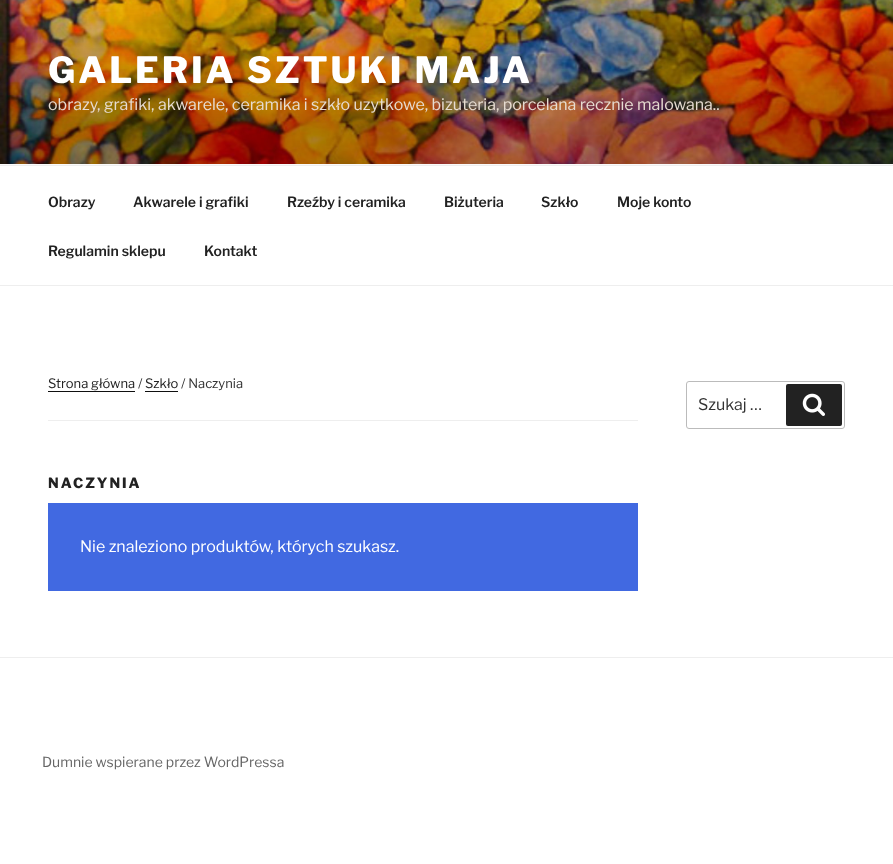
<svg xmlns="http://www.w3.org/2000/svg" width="893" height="864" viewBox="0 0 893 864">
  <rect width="100%" height="100%" fill="rgb(255,255,255)"/>
  <rect x="0" y="164" width="893" height="1" fill="rgb(250,250,250)"/>
  <image x="0" y="0" width="893" height="164" href="pic1.png"/>
  <text x="48" y="83" font-family="Libre Franklin" font-size="36" font-weight="800" letter-spacing="2.9" fill="rgb(255,255,255)">GALERIA SZTUKI MAJA</text>
  <text x="48" y="110" font-family="Libre Franklin" font-size="16" fill="rgb(231,220,209)">obrazy, grafiki, akwarele, ceramika i szkło uzytkowe, bizuteria, porcelana recznie malowana..</text>
  <rect x="0" y="165" width="893" height="1" fill="rgb(238,238,238)"/>
  <rect x="0" y="285" width="893" height="1" fill="rgb(238,238,238)"/>
  <g font-family="Libre Franklin" font-size="14" font-weight="600" fill="rgb(34,34,34)">
    <text x="48" y="207">Obrazy</text>
    <text x="133" y="207">Akwarele i grafiki</text>
    <text x="287" y="207">Rzeźby i ceramika</text>
    <text x="444" y="207">Biżuteria</text>
    <text x="541" y="207">Szkło</text>
    <text x="617" y="207">Moje konto</text>
    <text x="48" y="256">Regulamin sklepu</text>
    <text x="204" y="256">Kontakt</text>
  </g>
  <rect x="48" y="420" width="590" height="1" fill="rgb(238,238,238)"/>
  <text x="48" y="388" font-family="Libre Franklin" font-size="13" fill="rgb(34,34,34)">Strona główna</text>
  <rect x="48" y="391" width="87" height="1" fill="rgb(15,15,15)"/>
  <text x="138" y="388" font-family="Libre Franklin" font-size="13" fill="rgb(51,51,51)">/</text>
  <text x="145" y="388" font-family="Libre Franklin" font-size="13" fill="rgb(34,34,34)">Szkło</text>
  <rect x="145" y="391" width="33" height="1" fill="rgb(15,15,15)"/>
  <text x="181" y="388" font-family="Libre Franklin" font-size="13" fill="rgb(51,51,51)">/ Naczynia</text>
  <text x="48" y="488" font-family="Libre Franklin" font-size="14" font-weight="800" letter-spacing="2" fill="rgb(34,34,34)">NACZYNIA</text>
  <rect x="48" y="503" width="590" height="88" fill="rgb(65,105,225)"/>
  <text x="80" y="552" font-family="Libre Franklin" font-size="16" fill="rgb(255,255,255)">Nie znaleziono produktów, których szukasz.</text>
  <rect x="686.5" y="381.5" width="158" height="47" rx="2.5" fill="none" stroke="rgb(187,187,187)"/>
  <text x="698" y="410" font-family="Libre Franklin" font-size="16" fill="rgb(51,51,51)">Szukaj …</text>
  <rect x="786" y="384" width="56" height="42" rx="2" fill="rgb(34,34,34)"/>
  <image x="802" y="393" width="23" height="23" href="pic2.png"/>
  <rect x="0" y="657" width="893" height="1" fill="rgb(238,238,238)"/>
  <text x="42" y="767" font-family="Libre Franklin" font-size="14" fill="rgb(102,102,102)">Dumnie wspierane przez WordPressa</text>
</svg>
